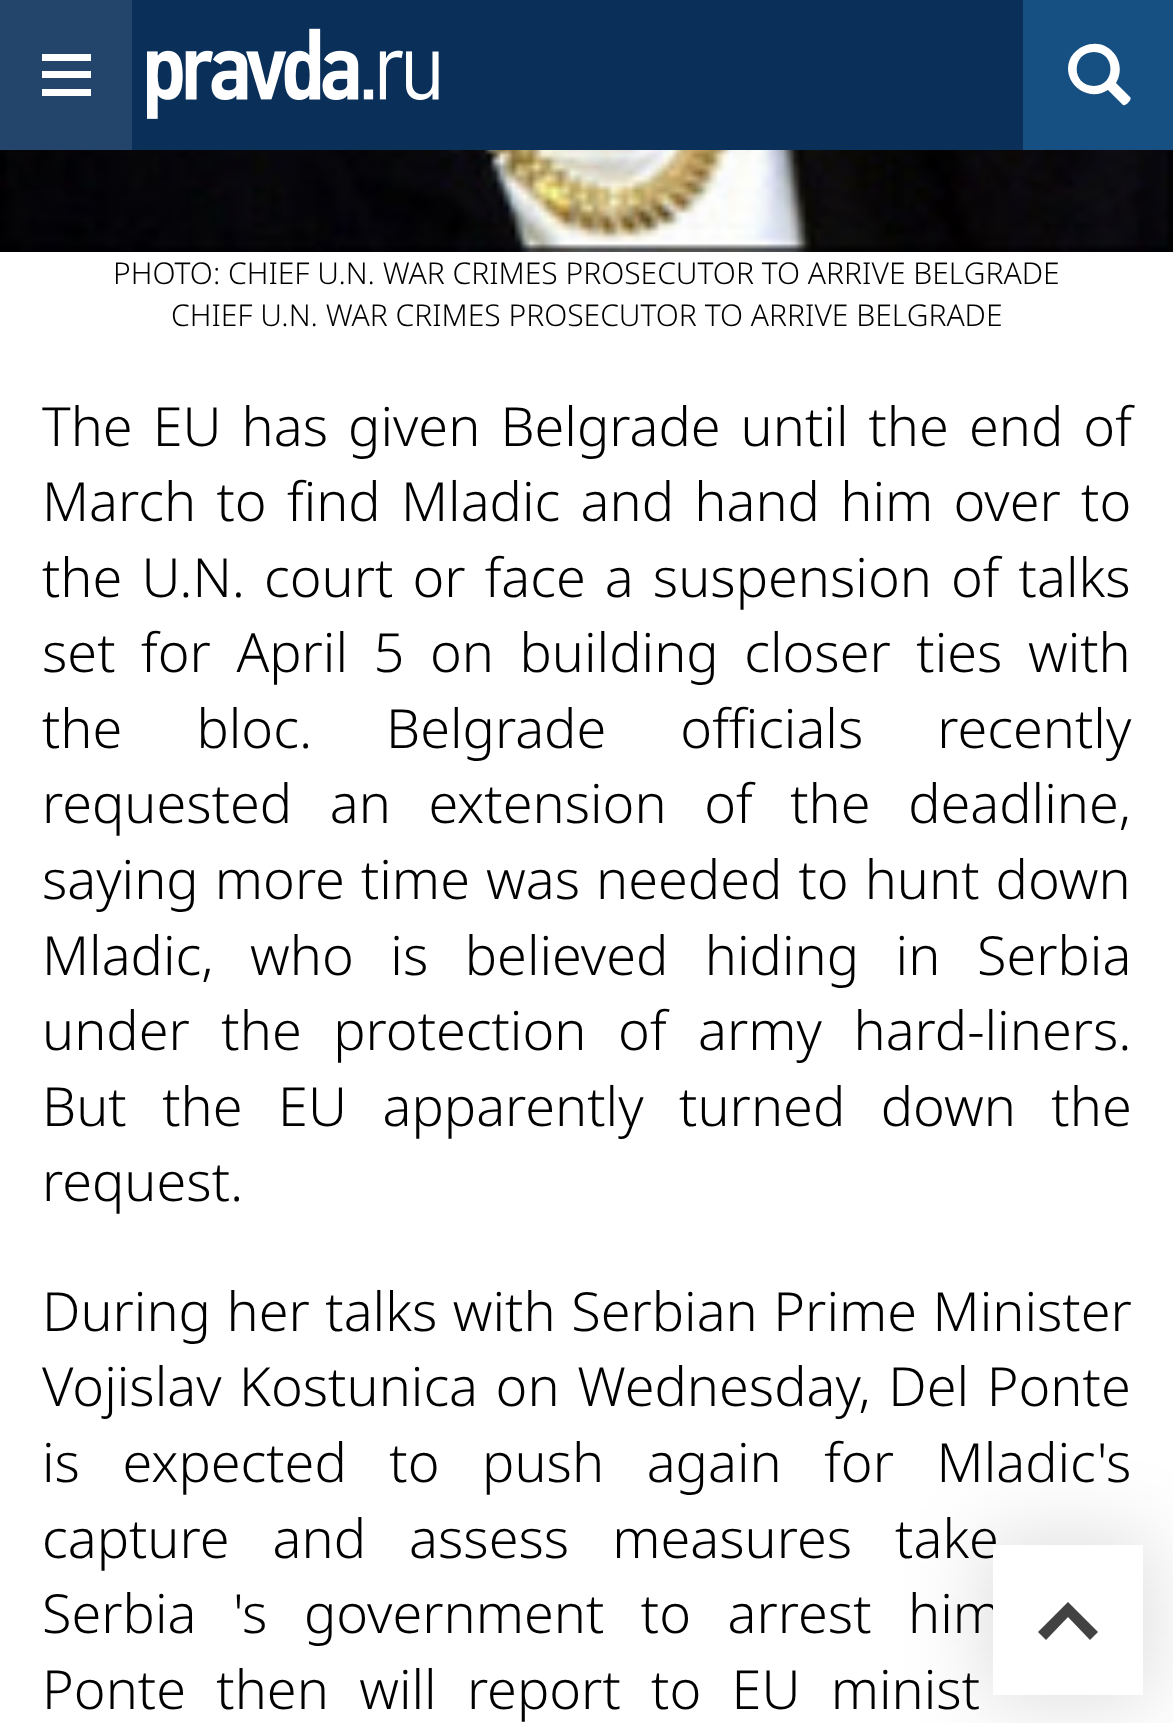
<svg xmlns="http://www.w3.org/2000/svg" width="1173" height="1723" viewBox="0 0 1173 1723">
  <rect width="100%" height="100%" fill="rgb(255,255,255)"/>
  <rect x="132" y="0" width="891" height="150" fill="rgb(10,48,90)"/>
  <rect x="0" y="0" width="132" height="150" fill="rgb(35,69,107)"/>
  <path d="M42 54H91V61H42ZM42 71H91V78H42ZM42 89H91V96H42Z" fill="rgb(255,255,255)"/>
  <image x="147" y="28" width="292" height="91" href="pic1.png"/>
  <rect x="1023" y="0" width="150" height="150" fill="rgb(22,79,130)"/>
  <path d="M1130 97L1116 83C1124 70 1119 53 1105 46C1099 43 1091 43 1084 46C1079 48 1074 52 1071 57C1059 80 1086 104 1108 90L1123 105C1125 107 1133 99 1130 97ZM1094 86C1071 86 1071 52 1094 52C1116 52 1116 86 1094 86Z" fill="rgb(255,255,255)"/>
  <image x="0" y="150" width="1173" height="102" href="pic2.png"/>
  <g font-family="Noto Sans" font-size="30" font-weight="300" fill="rgb(0,0,0)">
    <text x="113" y="284">PHOTO: CHIEF U.N. WAR CRIMES PROSECUTOR TO ARRIVE BELGRADE</text>
    <text x="171" y="326">CHIEF U.N. WAR CRIMES PROSECUTOR TO ARRIVE BELGRADE</text>
  </g>
  <g font-family="Noto Sans" font-size="54" font-weight="300" fill="rgb(0,0,0)">
    <text>
      <tspan x="42" y="446" word-spacing="6">The EU has given Belgrade until the end of</tspan>
      <tspan x="42" y="521" word-spacing="6.25">March to find Mladic and hand him over to</tspan>
      <tspan x="42" y="597" word-spacing="5">the U.N. court or face a suspension of talks</tspan>
      <tspan x="42" y="672" word-spacing="11.5">set for April 5 on building closer ties with</tspan>
      <tspan x="42" y="748" word-spacing="60">the bloc. Belgrade officials recently</tspan>
      <tspan x="42" y="823" word-spacing="23.5">requested an extension of the deadline,</tspan>
      <tspan x="42" y="899" word-spacing="2">saying more time was needed to hunt down</tspan>
      <tspan x="42" y="975" word-spacing="22.5">Mladic, who is believed hiding in Serbia</tspan>
      <tspan x="42" y="1050" word-spacing="17.5">under the protection of army hard-liners.</tspan>
      <tspan x="42" y="1126" word-spacing="21.5">But the EU apparently turned down the</tspan>
      <tspan x="42" y="1201">request.</tspan>
    </text>
    <text>
      <tspan x="42" y="1331" word-spacing="1.5">During her talks with Serbian Prime Minister</tspan>
      <tspan x="42" y="1406" word-spacing="3.5">Vojislav Kostunica on Wednesday, Del Ponte</tspan>
      <tspan x="42" y="1482" word-spacing="28.5">is expected to push again for Mladic's</tspan>
      <tspan x="42" y="1558" word-spacing="29">capture and assess measures take</tspan>
      <tspan x="42" y="1633" word-spacing="22.5">Serbia 's government to arrest him</tspan>
      <tspan x="42" y="1709" word-spacing="16.25">Ponte then will report to EU minist</tspan>
    </text>
  </g>
  <rect x="984" y="1536" width="168" height="168" fill="rgba(0,0,0,0.13)" filter="blur(40.5px)"/>
  <rect x="993" y="1545" width="150" height="150" fill="rgb(255,255,255)"/>
  <path d="M1068 1602L1098 1632L1090 1640L1068 1617L1046 1640L1038 1632Z" fill="rgb(66,66,66)"/>
</svg>
